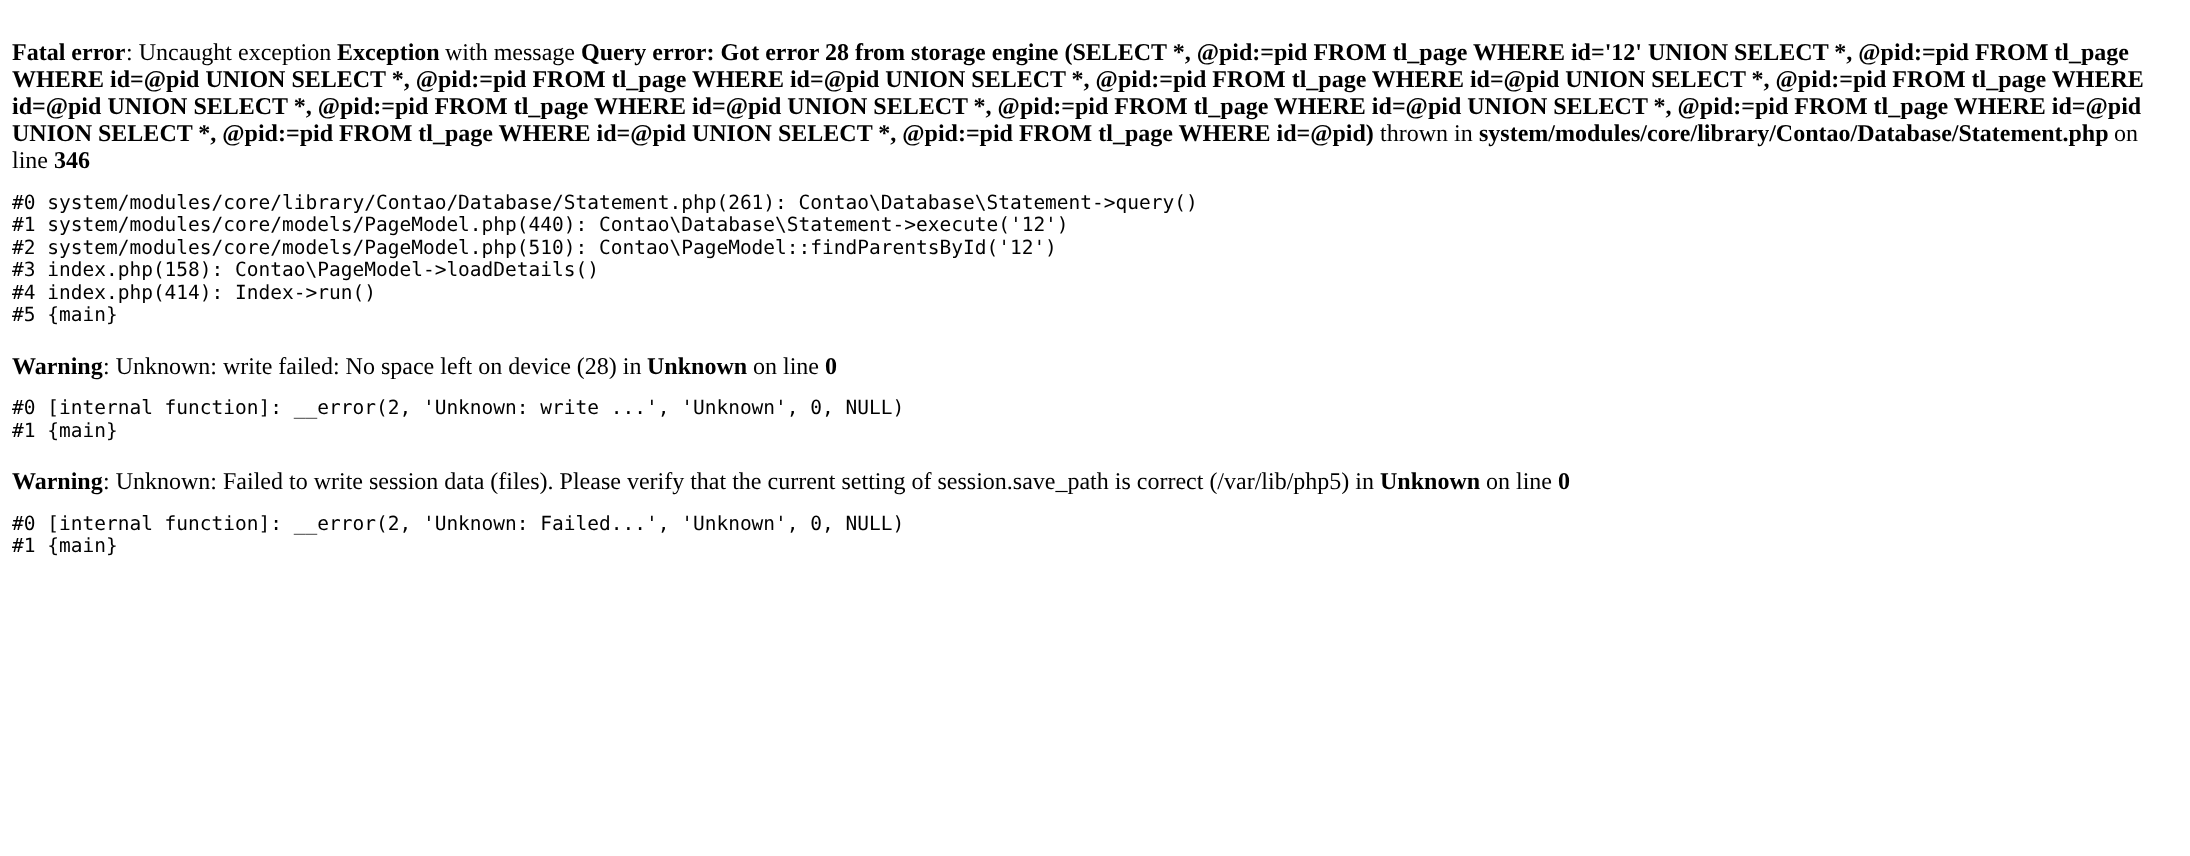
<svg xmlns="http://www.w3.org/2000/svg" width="2190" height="856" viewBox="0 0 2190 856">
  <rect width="100%" height="100%" fill="rgb(255,255,255)"/>
  <text x="12" y="60" font-family="Liberation Serif" font-size="24" font-weight="bold" fill="rgb(0,0,0)">Fatal error</text>
  <text x="126" y="60" font-family="Liberation Serif" font-size="24" fill="rgb(0,0,0)">: Uncaught exception</text>
  <text x="337" y="60" font-family="Liberation Serif" font-size="24" font-weight="bold" fill="rgb(0,0,0)">Exception</text>
  <text x="445" y="60" font-family="Liberation Serif" font-size="24" fill="rgb(0,0,0)">with message</text>
  <g font-family="Liberation Serif" font-size="24" font-weight="bold" fill="rgb(0,0,0)">
    <text x="581" y="60">Query error: Got error 28 from storage engine (SELECT *, @pid:=pid FROM tl_page WHERE id='12' UNION SELECT *, @pid:=pid FROM tl_page</text>
    <text>
      <tspan x="12" y="87">WHERE id=@pid UNION SELECT *, @pid:=pid FROM tl_page WHERE id=@pid UNION SELECT *, @pid:=pid FROM tl_page WHERE id=@pid UNION SELECT *, @pid:=pid FROM tl_page WHERE</tspan>
      <tspan x="12" y="114">id=@pid UNION SELECT *, @pid:=pid FROM tl_page WHERE id=@pid UNION SELECT *, @pid:=pid FROM tl_page WHERE id=@pid UNION SELECT *, @pid:=pid FROM tl_page WHERE id=@pid</tspan>
      <tspan x="12" y="141">UNION SELECT *, @pid:=pid FROM tl_page WHERE id=@pid UNION SELECT *, @pid:=pid FROM tl_page WHERE id=@pid)</tspan>
    </text>
  </g>
  <text x="1380" y="141" font-family="Liberation Serif" font-size="24" fill="rgb(0,0,0)">thrown in</text>
  <text x="1479" y="141" font-family="Liberation Serif" font-size="24" font-weight="bold" fill="rgb(0,0,0)">system/modules/core/library/Contao/Database/Statement.php</text>
  <g font-family="Liberation Serif" font-size="24" fill="rgb(0,0,0)">
    <text x="2114" y="141">on</text>
    <text x="12" y="168">line</text>
  </g>
  <text x="54" y="168" font-family="Liberation Serif" font-size="24" font-weight="bold" fill="rgb(0,0,0)">346</text>
  <g font-family="DejaVu Sans Mono" font-size="19.5" fill="rgb(0,0,0)">
    <text>
      <tspan x="12" y="209">#0 system/modules/core/library/Contao/Database/Statement.php(261): Contao\Database\Statement-&gt;query()</tspan>
      <tspan x="12" y="231">#1 system/modules/core/models/PageModel.php(440): Contao\Database\Statement-&gt;execute('12')</tspan>
      <tspan x="12" y="254">#2 system/modules/core/models/PageModel.php(510): Contao\PageModel::findParentsById('12')</tspan>
      <tspan x="12" y="276">#3 index.php(158): Contao\PageModel-&gt;loadDetails()</tspan>
      <tspan x="12" y="299">#4 index.php(414): Index-&gt;run()</tspan>
      <tspan x="12" y="321">#5 {main}</tspan>
    </text>
  </g>
  <text x="12" y="374" font-family="Liberation Serif" font-size="24" font-weight="bold" fill="rgb(0,0,0)">Warning</text>
  <text x="103" y="374" font-family="Liberation Serif" font-size="24" fill="rgb(0,0,0)">: Unknown: write failed: No space left on device (28) in</text>
  <text x="647" y="374" font-family="Liberation Serif" font-size="24" font-weight="bold" fill="rgb(0,0,0)">Unknown</text>
  <text x="753" y="374" font-family="Liberation Serif" font-size="24" fill="rgb(0,0,0)">on line</text>
  <text x="825" y="374" font-family="Liberation Serif" font-size="24" font-weight="bold" fill="rgb(0,0,0)">0</text>
  <g font-family="DejaVu Sans Mono" font-size="19.5" fill="rgb(0,0,0)">
    <text>
      <tspan x="12" y="414">#0 [internal function]: __error(2, 'Unknown: write ...', 'Unknown', 0, NULL)</tspan>
      <tspan x="12" y="437">#1 {main}</tspan>
    </text>
  </g>
  <text x="12" y="489" font-family="Liberation Serif" font-size="24" font-weight="bold" fill="rgb(0,0,0)">Warning</text>
  <text x="103" y="489" font-family="Liberation Serif" font-size="24" fill="rgb(0,0,0)">: Unknown: Failed to write session data (files). Please verify that the current setting of session.save_path is correct (/var/lib/php5) in</text>
  <text x="1380" y="489" font-family="Liberation Serif" font-size="24" font-weight="bold" fill="rgb(0,0,0)">Unknown</text>
  <text x="1486" y="489" font-family="Liberation Serif" font-size="24" fill="rgb(0,0,0)">on line</text>
  <text x="1558" y="489" font-family="Liberation Serif" font-size="24" font-weight="bold" fill="rgb(0,0,0)">0</text>
  <g font-family="DejaVu Sans Mono" font-size="19.5" fill="rgb(0,0,0)">
    <text>
      <tspan x="12" y="530">#0 [internal function]: __error(2, 'Unknown: Failed...', 'Unknown', 0, NULL)</tspan>
      <tspan x="12" y="552">#1 {main}</tspan>
    </text>
  </g>
</svg>
